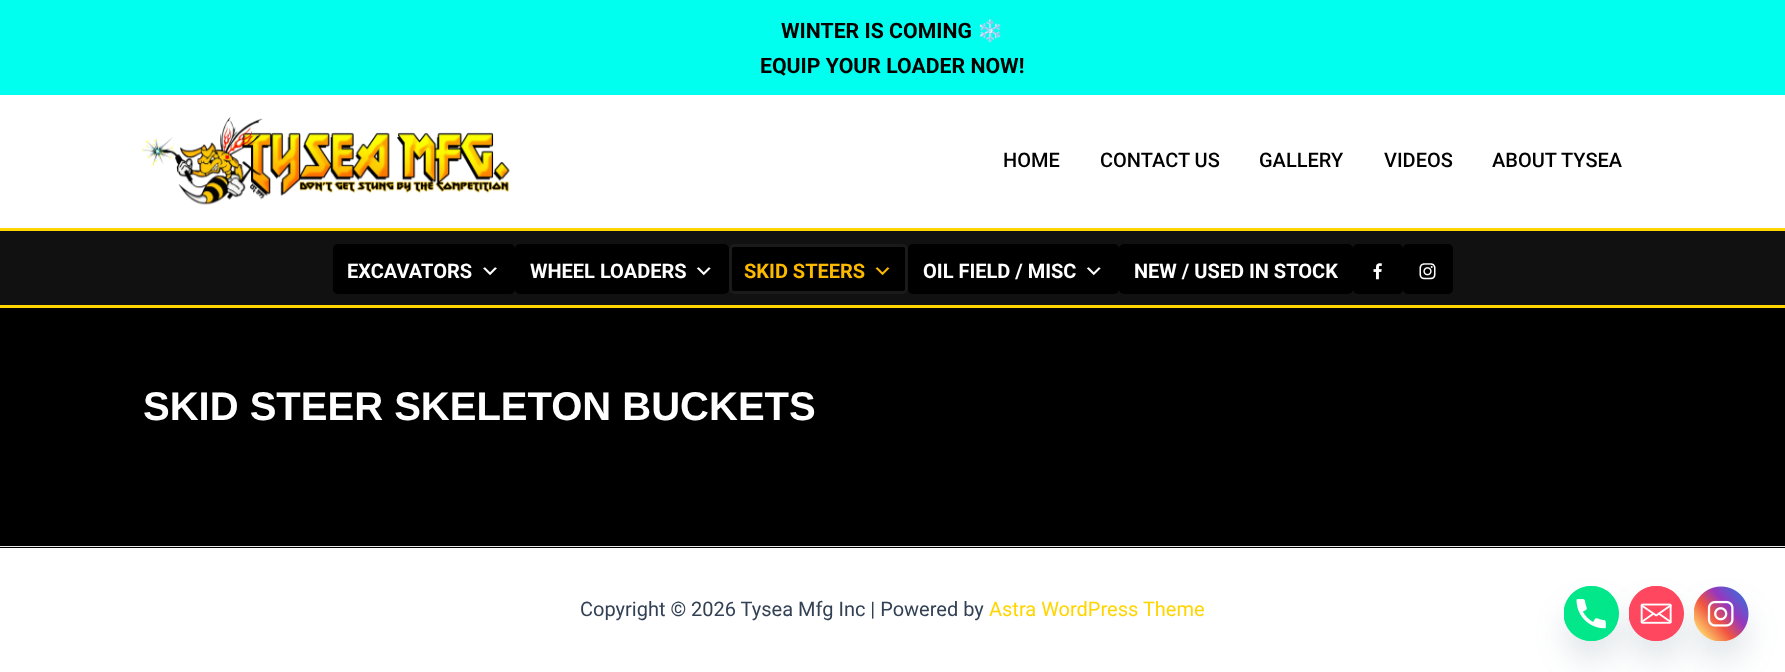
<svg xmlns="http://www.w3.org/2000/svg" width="1785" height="672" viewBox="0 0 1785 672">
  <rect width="100%" height="100%" fill="rgb(0,0,0)"/>
  <rect x="0" y="0" width="1785" height="95" fill="rgb(0,255,238)"/>
  <text x="781" y="38" font-family="Roboto" font-size="21.25" font-weight="bold" fill="rgb(0,0,0)">WINTER IS COMING</text>
  <text x="977" y="38" font-family="Noto Color Emoji" font-size="21.25" font-weight="bold" fill="rgb(0,0,0)">❄️</text>
  <text x="760" y="73" font-family="Roboto" font-size="21.25" font-weight="bold" fill="rgb(0,0,0)">EQUIP YOUR LOADER NOW!</text>
  <rect x="0" y="95" width="1785" height="133" fill="rgb(255,255,255)"/>
  <rect x="0" y="228" width="1785" height="3" fill="rgb(255,213,0)"/>
  <image x="142" y="117" width="368" height="88" href="pic1.png"/>
  <g font-family="Roboto" font-size="20" font-weight="500" fill="rgb(0,0,0)">
    <text x="1003" y="167">HOME</text>
    <text x="1100" y="167">CONTACT US</text>
    <text x="1259" y="167">GALLERY</text>
    <text x="1384" y="167">VIDEOS</text>
    <text x="1492" y="167">ABOUT TYSEA</text>
  </g>
  <rect x="0" y="231" width="1785" height="74" fill="rgb(17,17,17)"/>
  <rect x="0" y="305" width="1785" height="3" fill="rgb(255,213,0)"/>
  <rect x="333" y="244" width="182" height="50" rx="5" fill="rgb(0,0,0)"/>
  <text x="347" y="278" font-family="Roboto" font-size="20" font-weight="bold" fill="rgb(255,255,255)">EXCAVATORS</text>
  <image x="483" y="267" width="14" height="9" href="pic2.png"/>
  <rect x="515" y="244" width="214" height="50" rx="5" fill="rgb(0,0,0)"/>
  <text x="530" y="278" font-family="Roboto" font-size="20" font-weight="bold" fill="rgb(255,255,255)">WHEEL LOADERS</text>
  <image x="696" y="267" width="15" height="9" href="pic3.png"/>
  <rect x="729" y="244" width="179" height="50" rx="5" fill="rgb(0,0,0)"/>
  <rect x="730.5" y="245.5" width="176" height="47" rx="3.5" fill="none" stroke="rgba(255,255,255,0.1)" stroke-width="3"/>
  <text x="744" y="278" font-family="Roboto" font-size="20" font-weight="bold" fill="rgb(252,185,0)">SKID STEERS</text>
  <image x="875" y="267" width="15" height="9" href="pic4.png"/>
  <rect x="908" y="244" width="211" height="50" rx="5" fill="rgb(0,0,0)"/>
  <text x="923" y="278" font-family="Roboto" font-size="20" font-weight="bold" fill="rgb(255,255,255)">OIL FIELD / MISC</text>
  <image x="1086" y="267" width="15" height="9" href="pic3.png"/>
  <rect x="1119" y="244" width="234" height="50" rx="5" fill="rgb(0,0,0)"/>
  <text x="1134" y="278" font-family="Roboto" font-size="20" font-weight="bold" fill="rgb(255,255,255)">NEW / USED IN STOCK</text>
  <rect x="1353" y="244" width="50" height="50" rx="5" fill="rgb(0,0,0)"/>
  <image x="1373" y="263" width="9" height="17" href="pic5.png"/>
  <rect x="1403" y="244" width="50" height="50" rx="5" fill="rgb(0,0,0)"/>
  <image x="1419" y="263" width="17" height="17" href="pic6.png"/>
  <text x="143" y="420" font-family="Liberation Sans" font-size="40" font-weight="bold" fill="rgb(255,255,255)">SKID STEER SKELETON BUCKETS</text>
  <rect x="0" y="548" width="1785" height="124" fill="rgb(255,255,255)"/>
  <rect x="0" y="546" width="1785" height="1" fill="rgb(234,234,234)"/>
  <text x="580" y="616" font-family="Roboto" font-size="20" fill="rgb(51,65,85)">Copyright © 2026 Tysea Mfg Inc | Powered by</text>
  <text x="989" y="616" font-family="Roboto" font-size="20" fill="rgb(255,213,0)">Astra WordPress Theme</text>
  <rect x="1564" y="606" width="55" height="55" rx="27.5" fill="rgba(73,104,126,0.16)" filter="blur(15px)"/>
  <circle cx="1591.5" cy="613.5" r="27.5" fill="rgb(3,231,139)"/>
  <image x="1564" y="586" width="55" height="55" href="pic7.png"/>
  <rect x="1629" y="606" width="55" height="55" rx="27.5" fill="rgba(73,104,126,0.16)" filter="blur(15px)"/>
  <circle cx="1656.5" cy="613.5" r="27.5" fill="rgb(255,72,95)"/>
  <image x="1629" y="586" width="55" height="55" href="pic8.png"/>
  <rect x="1694" y="606" width="55" height="55" rx="27.5" fill="rgba(73,104,126,0.16)" filter="blur(15px)"/>
  <circle cx="1721.5" cy="613.5" r="27.5" fill="rgb(255,255,255)"/>
  <image x="1694" y="586" width="55" height="55" href="pic9.png"/>
</svg>
